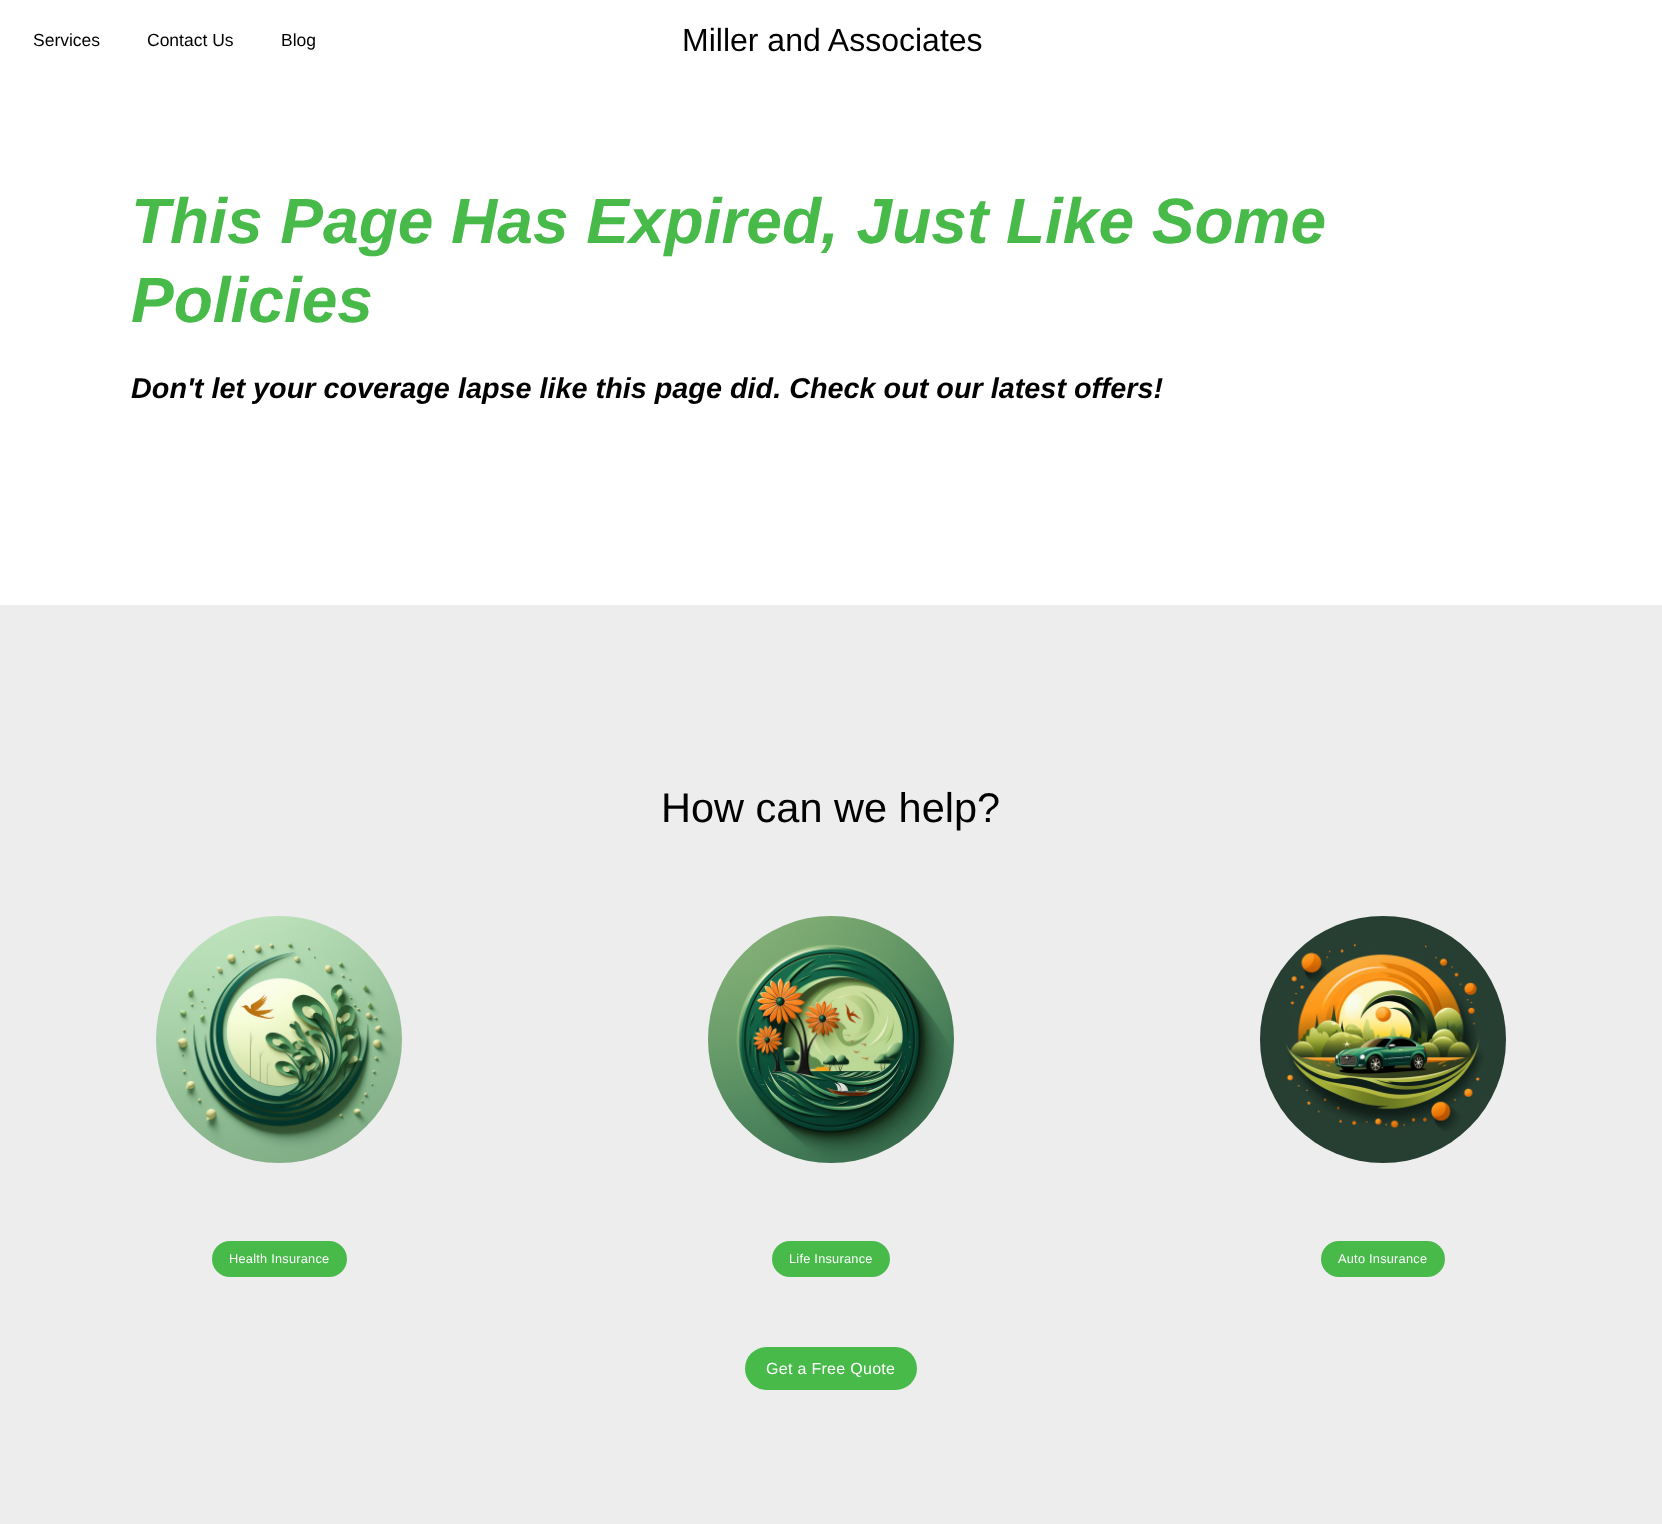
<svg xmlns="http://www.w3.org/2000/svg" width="1662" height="1524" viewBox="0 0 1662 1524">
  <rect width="100%" height="100%" fill="rgb(255,255,255)"/>
  <g font-family="Liberation Sans" font-size="17.5" fill="rgb(0,0,0)">
    <text x="33" y="46">Services</text>
    <text x="147" y="46">Contact Us</text>
    <text x="281" y="46">Blog</text>
  </g>
  <text x="682" y="51" font-family="Liberation Sans" font-size="32" fill="rgb(0,0,0)">Miller and Associates</text>
  <g font-family="Liberation Sans" font-size="64" font-weight="bold" font-style="italic" fill="rgb(71,186,74)">
    <text>
      <tspan x="131" y="243">This Page Has Expired, Just Like Some</tspan>
      <tspan x="131" y="322">Policies</tspan>
    </text>
  </g>
  <text x="131" y="398" font-family="Liberation Sans" font-size="28.8" font-weight="bold" font-style="italic" fill="rgb(0,0,0)">Don't let your coverage lapse like this page did. Check out our latest offers!</text>
  <rect x="0" y="605" width="1662" height="919" fill="rgb(237,237,237)"/>
  <text x="661" y="822" font-family="Liberation Sans" font-size="41.5" fill="rgb(0,0,0)">How can we help?</text>
  <image x="156" y="916" width="246" height="247" href="pic1.png"/>
  <rect x="212" y="1241" width="135" height="36" rx="18" fill="rgb(71,186,74)"/>
  <text x="229" y="1263" font-family="Liberation Sans" font-size="12.75" letter-spacing="0.25" fill="rgb(255,255,255)">Health Insurance</text>
  <image x="708" y="916" width="246" height="247" href="pic2.png"/>
  <rect x="772" y="1241" width="118" height="36" rx="18" fill="rgb(71,186,74)"/>
  <text x="789" y="1263" font-family="Liberation Sans" font-size="12.75" letter-spacing="0.25" fill="rgb(255,255,255)">Life Insurance</text>
  <image x="1260" y="916" width="246" height="247" href="pic3.png"/>
  <rect x="1321" y="1241" width="124" height="36" rx="18" fill="rgb(71,186,74)"/>
  <text x="1338" y="1263" font-family="Liberation Sans" font-size="12.75" letter-spacing="0.25" fill="rgb(255,255,255)">Auto Insurance</text>
  <rect x="745" y="1347" width="172" height="43" rx="21.5" fill="rgb(71,186,74)"/>
  <text x="766" y="1374" font-family="Liberation Sans" font-size="16" letter-spacing="0.3" fill="rgb(255,255,255)">Get a Free Quote</text>
</svg>
